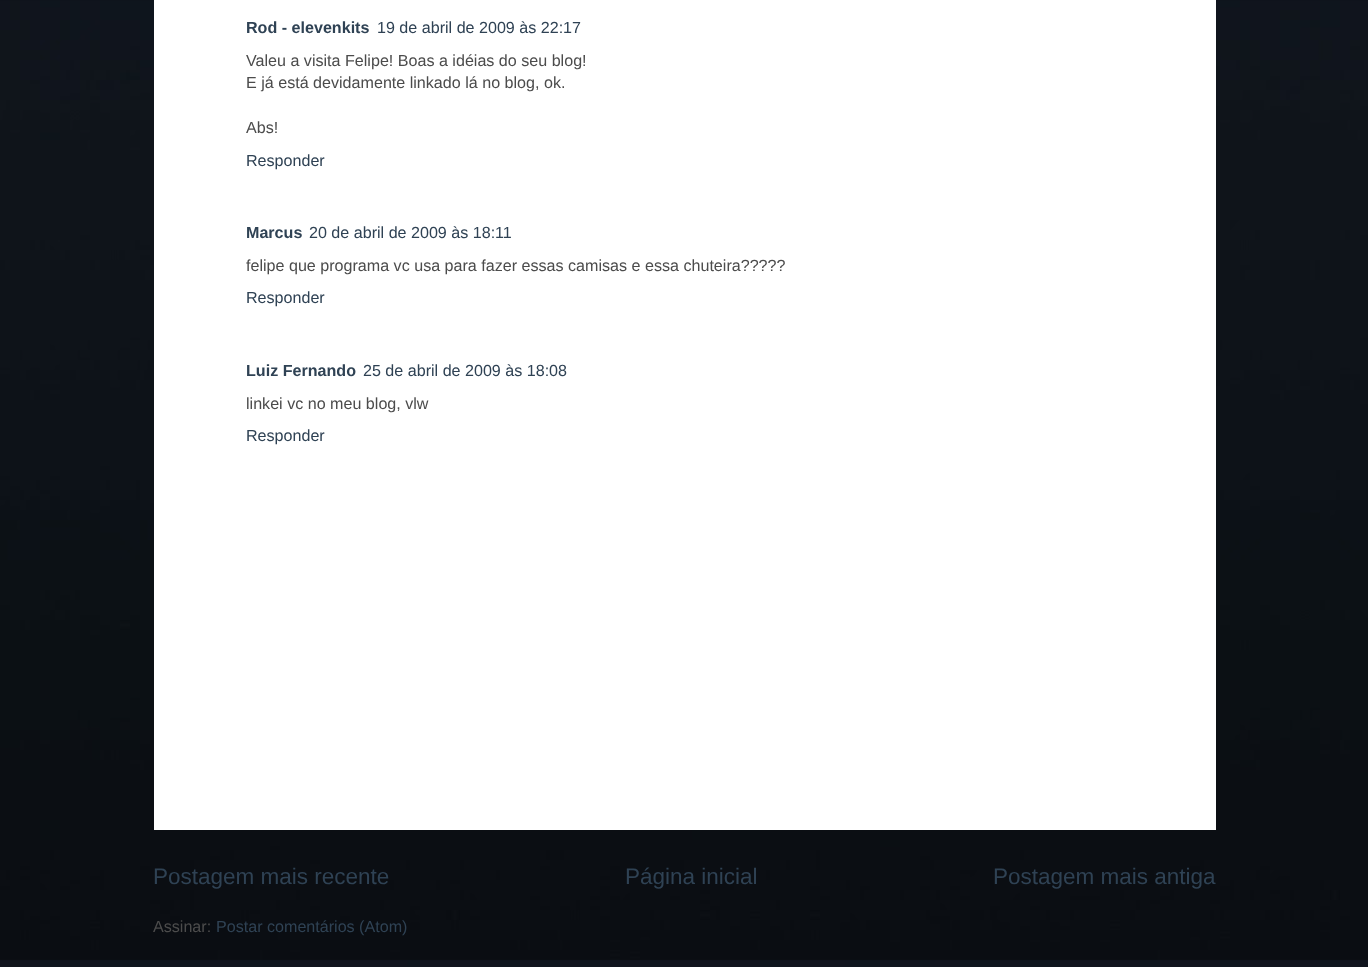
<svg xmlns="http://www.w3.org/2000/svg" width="1368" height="967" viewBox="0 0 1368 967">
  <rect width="100%" height="100%" fill="rgb(255,255,255)"/>
  <image x="0" y="0" width="1368" height="967" href="pic1.png"/>
  <rect x="154" y="0" width="1062" height="830" fill="rgb(255,255,255)"/>
  <text x="246" y="33" font-family="Liberation Sans" font-size="16.1" font-weight="bold" fill="rgb(47,66,84)">Rod - elevenkits</text>
  <text x="377" y="33" font-family="Liberation Sans" font-size="16.1" fill="rgb(47,66,84)">19 de abril de 2009 às 22:17</text>
  <g font-family="Liberation Sans" font-size="16.1" fill="rgb(76,76,76)">
    <text>
      <tspan x="246" y="66">Valeu a visita Felipe! Boas a idéias do seu blog!</tspan>
      <tspan x="246" y="88">E já está devidamente linkado lá no blog, ok.</tspan>
    </text>
    <text x="246" y="133">Abs!</text>
  </g>
  <text x="246" y="166" font-family="Liberation Sans" font-size="16.1" fill="rgb(47,66,84)">Responder</text>
  <text x="246" y="238" font-family="Liberation Sans" font-size="16.1" font-weight="bold" fill="rgb(47,66,84)">Marcus</text>
  <text x="309" y="238" font-family="Liberation Sans" font-size="16.1" fill="rgb(47,66,84)">20 de abril de 2009 às 18:11</text>
  <text x="246" y="271" font-family="Liberation Sans" font-size="16.1" fill="rgb(76,76,76)">felipe que programa vc usa para fazer essas camisas e essa chuteira?????</text>
  <text x="246" y="303" font-family="Liberation Sans" font-size="16.1" fill="rgb(47,66,84)">Responder</text>
  <text x="246" y="376" font-family="Liberation Sans" font-size="16.1" font-weight="bold" fill="rgb(47,66,84)">Luiz Fernando</text>
  <text x="363" y="376" font-family="Liberation Sans" font-size="16.1" fill="rgb(47,66,84)">25 de abril de 2009 às 18:08</text>
  <text x="246" y="409" font-family="Liberation Sans" font-size="16.1" fill="rgb(76,76,76)">linkei vc no meu blog, vlw</text>
  <text x="246" y="441" font-family="Liberation Sans" font-size="16.1" fill="rgb(47,66,84)">Responder</text>
  <g font-family="Liberation Sans" font-size="22.5" fill="rgb(47,66,84)">
    <text x="153" y="884">Postagem mais recente</text>
    <text x="625" y="884">Página inicial</text>
    <text x="993" y="884">Postagem mais antiga</text>
  </g>
  <text x="153" y="932" font-family="Liberation Sans" font-size="16.1" fill="rgb(76,76,76)">Assinar:</text>
  <text x="216" y="932" font-family="Liberation Sans" font-size="16.1" fill="rgb(47,66,84)">Postar comentários (Atom)</text>
</svg>
